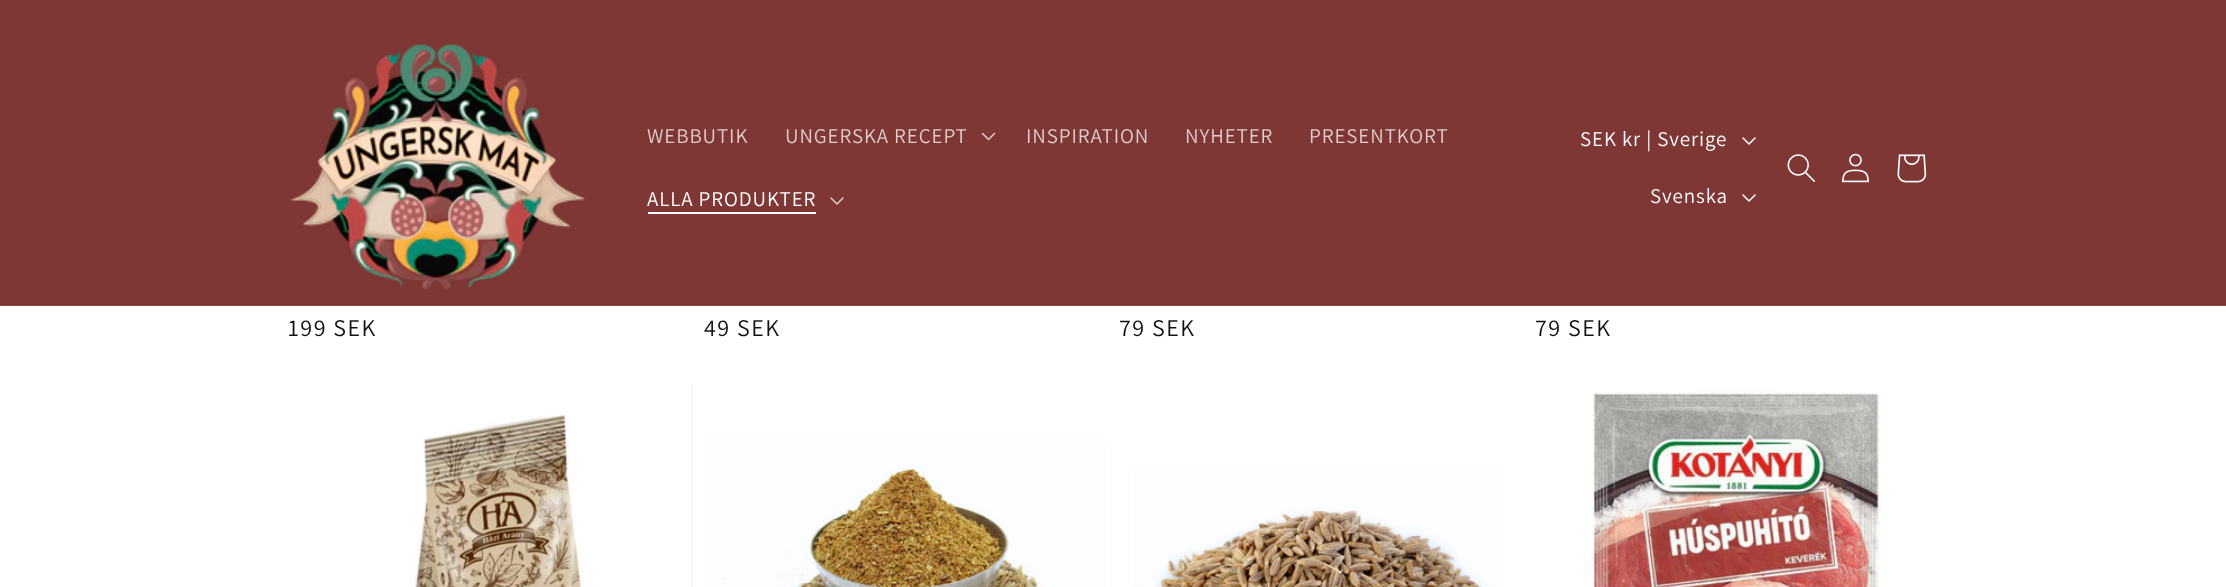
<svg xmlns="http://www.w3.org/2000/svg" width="2226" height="587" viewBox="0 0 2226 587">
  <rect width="100%" height="100%" fill="rgb(255,255,255)"/>
  <rect x="0" y="0" width="2226" height="305" fill="rgb(126,55,52)"/>
  <rect x="0" y="305" width="2226" height="1" fill="rgb(136,71,68)"/>
  <image x="290" y="44" width="296" height="246" href="pic1.png"/>
  <g font-family="Assistant" font-size="21" letter-spacing="0.9" fill="rgb(223,205,204)">
    <text x="647" y="143">WEBBUTIK</text>
    <text x="785" y="143">UNGERSKA RECEPT</text>
  </g>
  <image x="981" y="132" width="15" height="9" href="pic2.png"/>
  <g font-family="Assistant" font-size="21" letter-spacing="0.9" fill="rgb(223,205,204)">
    <text x="1026" y="143">INSPIRATION</text>
    <text x="1185" y="143">NYHETER</text>
    <text x="1309" y="143">PRESENTKORT</text>
  </g>
  <text x="647" y="206" font-family="Assistant" font-size="21" letter-spacing="0.9" fill="rgb(255,255,255)">ALLA PRODUKTER</text>
  <rect x="648" y="212" width="168" height="2" fill="rgb(255,255,255)"/>
  <image x="830" y="197" width="14" height="8" href="pic3.png"/>
  <text x="1580" y="146" font-family="Assistant" font-size="21" letter-spacing="0.9" fill="rgb(255,255,255)">SEK kr | Sverige</text>
  <image x="1742" y="137" width="14" height="8" href="pic4.png"/>
  <text x="1650" y="203" font-family="Assistant" font-size="21" letter-spacing="0.9" fill="rgb(255,255,255)">Svenska</text>
  <image x="1742" y="194" width="14" height="8" href="pic4.png"/>
  <image x="1787" y="154" width="28" height="28" href="pic5.png"/>
  <image x="1842" y="153" width="27" height="30" href="pic6.png"/>
  <image x="1897" y="154" width="30" height="29" href="pic7.png"/>
  <g font-family="Assistant" font-size="24" letter-spacing="1.5" fill="rgb(18,18,18)">
    <text x="288" y="336">199 SEK</text>
    <text x="704" y="336">49 SEK</text>
    <text x="1119" y="336">79 SEK</text>
    <text x="1535" y="336">79 SEK</text>
  </g>
  <rect x="691" y="384" width="1" height="203" fill="rgb(243,243,243)"/>
  <image x="288" y="384" width="403" height="203" href="pic8.png"/>
  <image x="704" y="384" width="403" height="203" href="pic9.png"/>
  <image x="1119" y="384" width="404" height="203" href="pic10.png"/>
  <image x="1535" y="384" width="403" height="203" href="pic11.png"/>
</svg>
